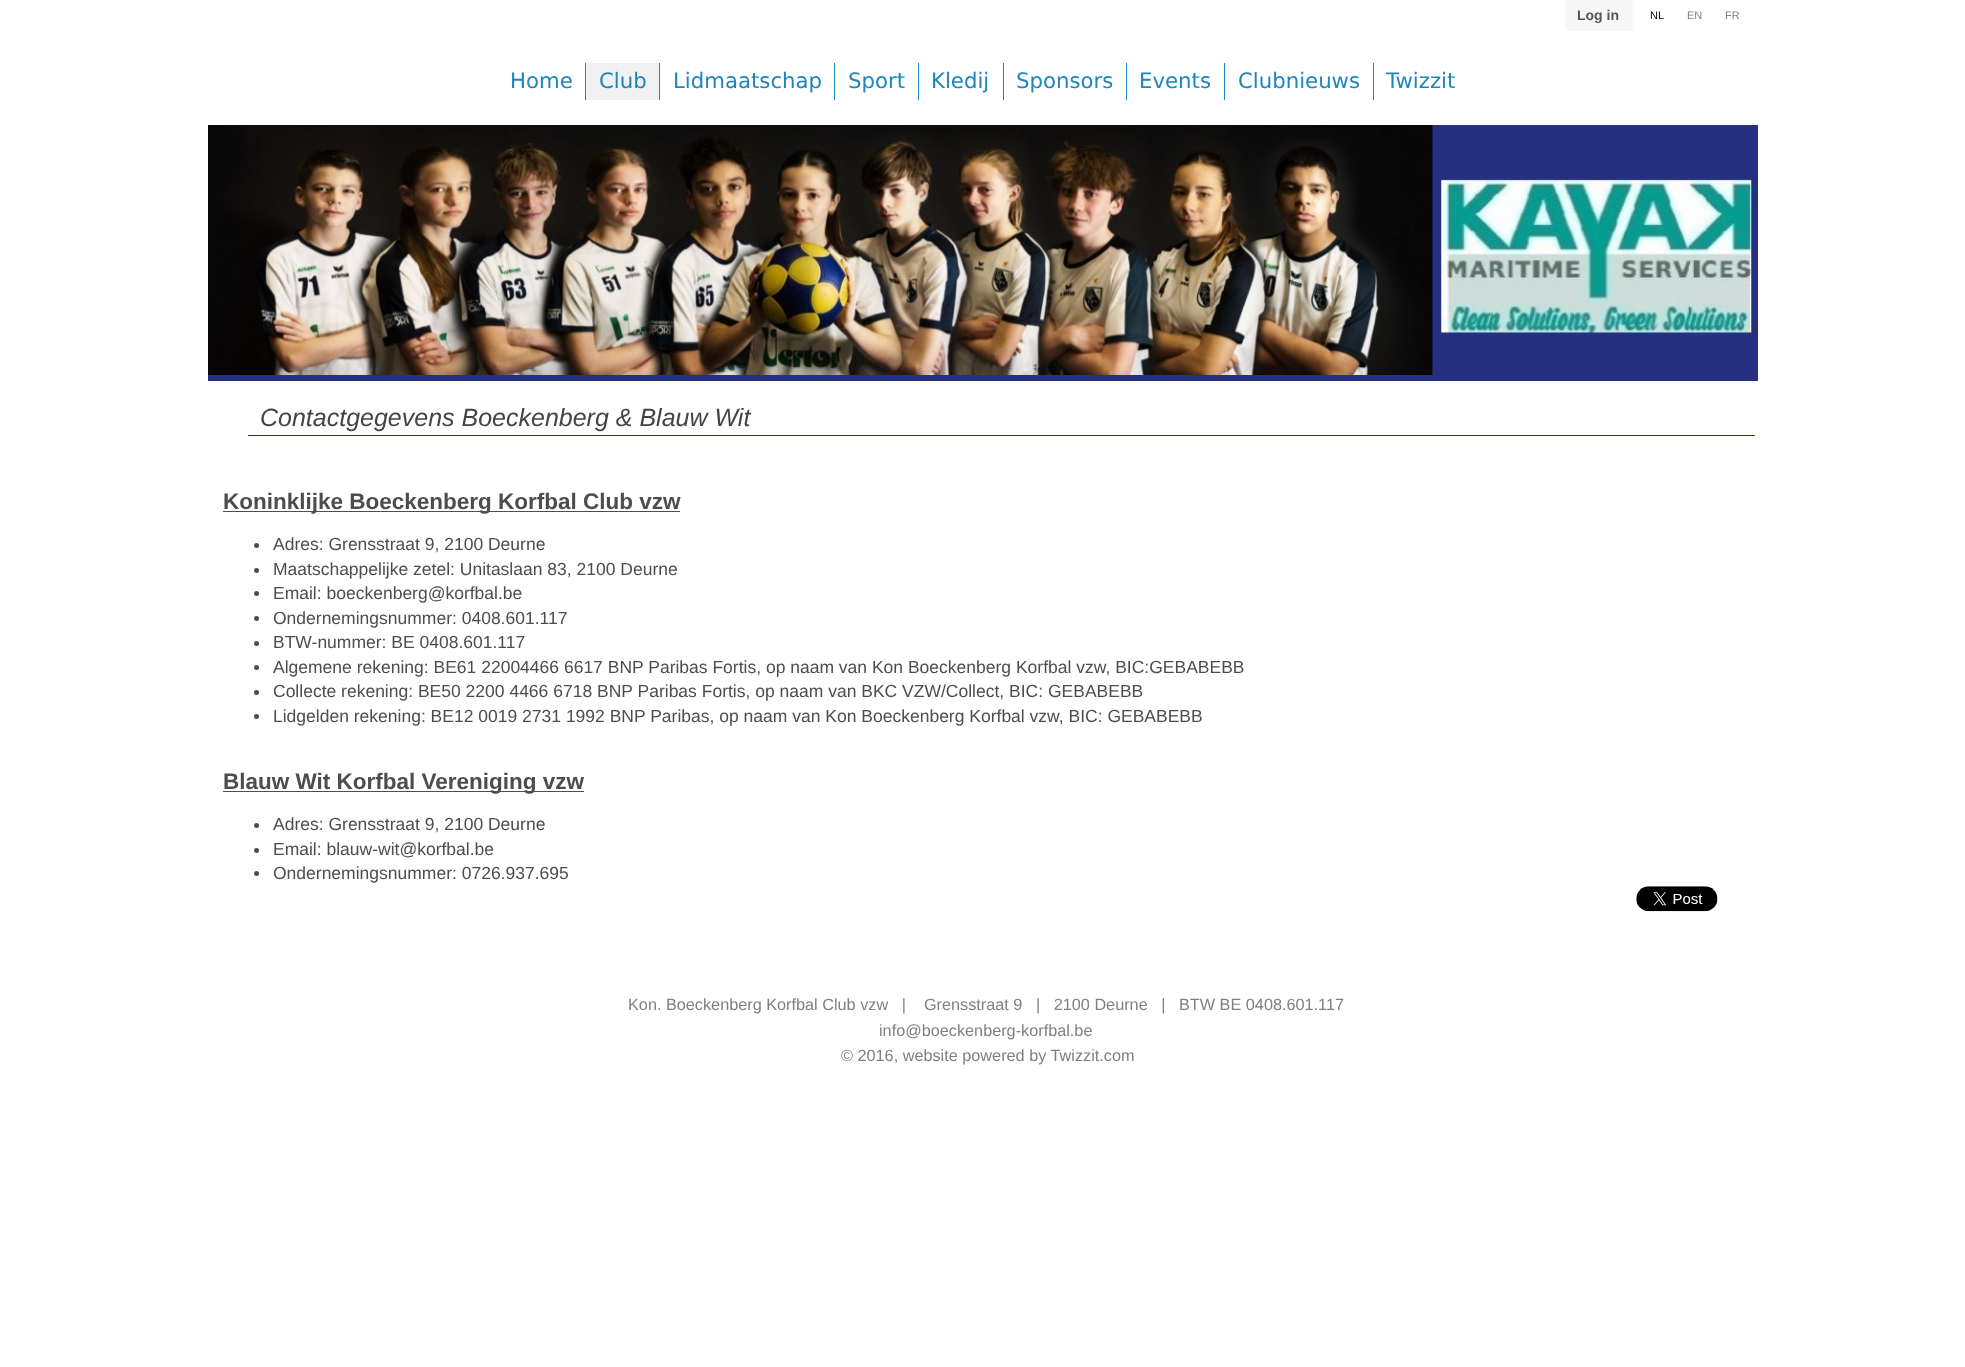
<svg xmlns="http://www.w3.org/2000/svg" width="1965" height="1367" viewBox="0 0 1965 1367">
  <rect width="100%" height="100%" fill="rgb(255,255,255)"/>
  <path d="M1565 0H1633V28.5C1633 30 1632 31 1630.5 31H1567.5C1566 31 1565 30 1565 28.5Z" fill="rgb(247,247,247)"/>
  <text x="1577" y="20" font-family="Liberation Sans" font-size="14" font-weight="bold" fill="rgb(85,85,85)">Log in</text>
  <text x="1650" y="19" font-family="Liberation Sans" font-size="11" fill="rgb(0,0,0)">NL</text>
  <g font-family="Liberation Sans" font-size="11" fill="rgb(128,128,128)">
    <text x="1687" y="19">EN</text>
    <text x="1725" y="19">FR</text>
  </g>
  <rect x="585" y="63" width="1" height="37" fill="rgb(30,134,186)"/>
  <text x="510" y="88" font-family="DejaVu Sans" font-size="21.25" fill="rgb(30,134,186)">Home</text>
  <rect x="586" y="63" width="73" height="37" fill="rgb(241,241,241)"/>
  <rect x="659" y="63" width="1" height="37" fill="rgb(30,134,186)"/>
  <text x="599" y="88" font-family="DejaVu Sans" font-size="21.25" fill="rgb(30,134,186)">Club</text>
  <rect x="834" y="63" width="1" height="37" fill="rgb(30,134,186)"/>
  <text x="673" y="88" font-family="DejaVu Sans" font-size="21.25" fill="rgb(30,134,186)">Lidmaatschap</text>
  <rect x="918" y="63" width="1" height="37" fill="rgb(30,134,186)"/>
  <text x="848" y="88" font-family="DejaVu Sans" font-size="21.25" fill="rgb(30,134,186)">Sport</text>
  <rect x="1003" y="63" width="1" height="37" fill="rgb(30,134,186)"/>
  <text x="931" y="88" font-family="DejaVu Sans" font-size="21.25" fill="rgb(30,134,186)">Kledij</text>
  <rect x="1126" y="63" width="1" height="37" fill="rgb(30,134,186)"/>
  <text x="1016" y="88" font-family="DejaVu Sans" font-size="21.25" fill="rgb(30,134,186)">Sponsors</text>
  <rect x="1224" y="63" width="1" height="37" fill="rgb(30,134,186)"/>
  <text x="1139" y="88" font-family="DejaVu Sans" font-size="21.25" fill="rgb(30,134,186)">Events</text>
  <rect x="1373" y="63" width="1" height="37" fill="rgb(30,134,186)"/>
  <g font-family="DejaVu Sans" font-size="21.25" fill="rgb(30,134,186)">
    <text x="1238" y="88">Clubnieuws</text>
    <text x="1386" y="88">Twizzit</text>
  </g>
  <rect x="208" y="125" width="1550" height="256" fill="rgb(37,48,128)"/>
  <image x="208" y="125" width="1225" height="250" href="pic1.png"/>
  <image x="1441" y="179" width="311" height="154" href="pic2.png"/>
  <rect x="248" y="435" width="1507" height="1" fill="rgb(37,48,128)"/>
  <text x="260" y="426" font-family="Liberation Sans" font-size="25" font-style="italic" fill="rgb(68,68,68)">Contactgegevens Boeckenberg &amp; Blauw Wit</text>
  <rect x="223" y="511" width="457" height="1" fill="rgb(77,77,77)"/>
  <text x="223" y="509" font-family="Liberation Sans" font-size="22.5" font-weight="bold" fill="rgb(77,77,77)">Koninklijke Boeckenberg Korfbal Club vzw</text>
  <circle cx="256.5" cy="545.5" r="2.5" fill="rgb(77,77,77)"/>
  <text x="273" y="550" font-family="Liberation Sans" font-size="17.5" fill="rgb(77,77,77)">Adres: Grensstraat 9, 2100 Deurne</text>
  <circle cx="256.5" cy="570.5" r="2.5" fill="rgb(77,77,77)"/>
  <text x="273" y="575" font-family="Liberation Sans" font-size="17.5" fill="rgb(77,77,77)">Maatschappelijke zetel: Unitaslaan 83, 2100 Deurne</text>
  <circle cx="256.5" cy="593.5" r="2.5" fill="rgb(77,77,77)"/>
  <text x="273" y="599" font-family="Liberation Sans" font-size="17.5" fill="rgb(77,77,77)">Email: boeckenberg@korfbal.be</text>
  <circle cx="256.5" cy="618.5" r="2.5" fill="rgb(77,77,77)"/>
  <text x="273" y="624" font-family="Liberation Sans" font-size="17.5" fill="rgb(77,77,77)">Ondernemingsnummer: 0408.601.117</text>
  <circle cx="256.5" cy="643.5" r="2.5" fill="rgb(77,77,77)"/>
  <text x="273" y="648" font-family="Liberation Sans" font-size="17.5" fill="rgb(77,77,77)">BTW-nummer: BE 0408.601.117</text>
  <circle cx="256.5" cy="667.5" r="2.5" fill="rgb(77,77,77)"/>
  <text x="273" y="673" font-family="Liberation Sans" font-size="17.5" fill="rgb(77,77,77)">Algemene rekening: BE61 22004466 6617 BNP Paribas Fortis, op naam van Kon Boeckenberg Korfbal vzw, BIC:GEBABEBB</text>
  <circle cx="256.5" cy="692.5" r="2.5" fill="rgb(77,77,77)"/>
  <text x="273" y="697" font-family="Liberation Sans" font-size="17.5" fill="rgb(77,77,77)">Collecte rekening: BE50 2200 4466 6718 BNP Paribas Fortis, op naam van BKC VZW/Collect, BIC: GEBABEBB</text>
  <circle cx="256.5" cy="716.5" r="2.5" fill="rgb(77,77,77)"/>
  <text x="273" y="722" font-family="Liberation Sans" font-size="17.5" fill="rgb(77,77,77)">Lidgelden rekening: BE12 0019 2731 1992 BNP Paribas, op naam van Kon Boeckenberg Korfbal vzw, BIC: GEBABEBB</text>
  <rect x="223" y="791" width="361" height="1" fill="rgb(77,77,77)"/>
  <text x="223" y="789" font-family="Liberation Sans" font-size="22.5" font-weight="bold" fill="rgb(77,77,77)">Blauw Wit Korfbal Vereniging vzw</text>
  <circle cx="256.5" cy="825.5" r="2.5" fill="rgb(77,77,77)"/>
  <text x="273" y="830" font-family="Liberation Sans" font-size="17.5" fill="rgb(77,77,77)">Adres: Grensstraat 9, 2100 Deurne</text>
  <circle cx="256.5" cy="850.5" r="2.5" fill="rgb(77,77,77)"/>
  <text x="273" y="855" font-family="Liberation Sans" font-size="17.5" fill="rgb(77,77,77)">Email: blauw-wit@korfbal.be</text>
  <circle cx="256.5" cy="873.5" r="2.5" fill="rgb(77,77,77)"/>
  <text x="273" y="879" font-family="Liberation Sans" font-size="17.5" fill="rgb(77,77,77)">Ondernemingsnummer: 0726.937.695</text>
  <image x="1636" y="886" width="82" height="26" href="pic3.png"/>
  <g font-family="Liberation Sans" font-size="16.25" fill="rgb(128,128,128)">
    <text x="628" y="1010" xml:space="preserve">Kon. Boeckenberg Korfbal Club vzw   |    Grensstraat 9   |   2100 Deurne   |   BTW BE 0408.601.117</text>
    <text x="879" y="1036">info@boeckenberg-korfbal.be</text>
    <text x="841" y="1061">© 2016, website powered by Twizzit.com</text>
  </g>
</svg>
